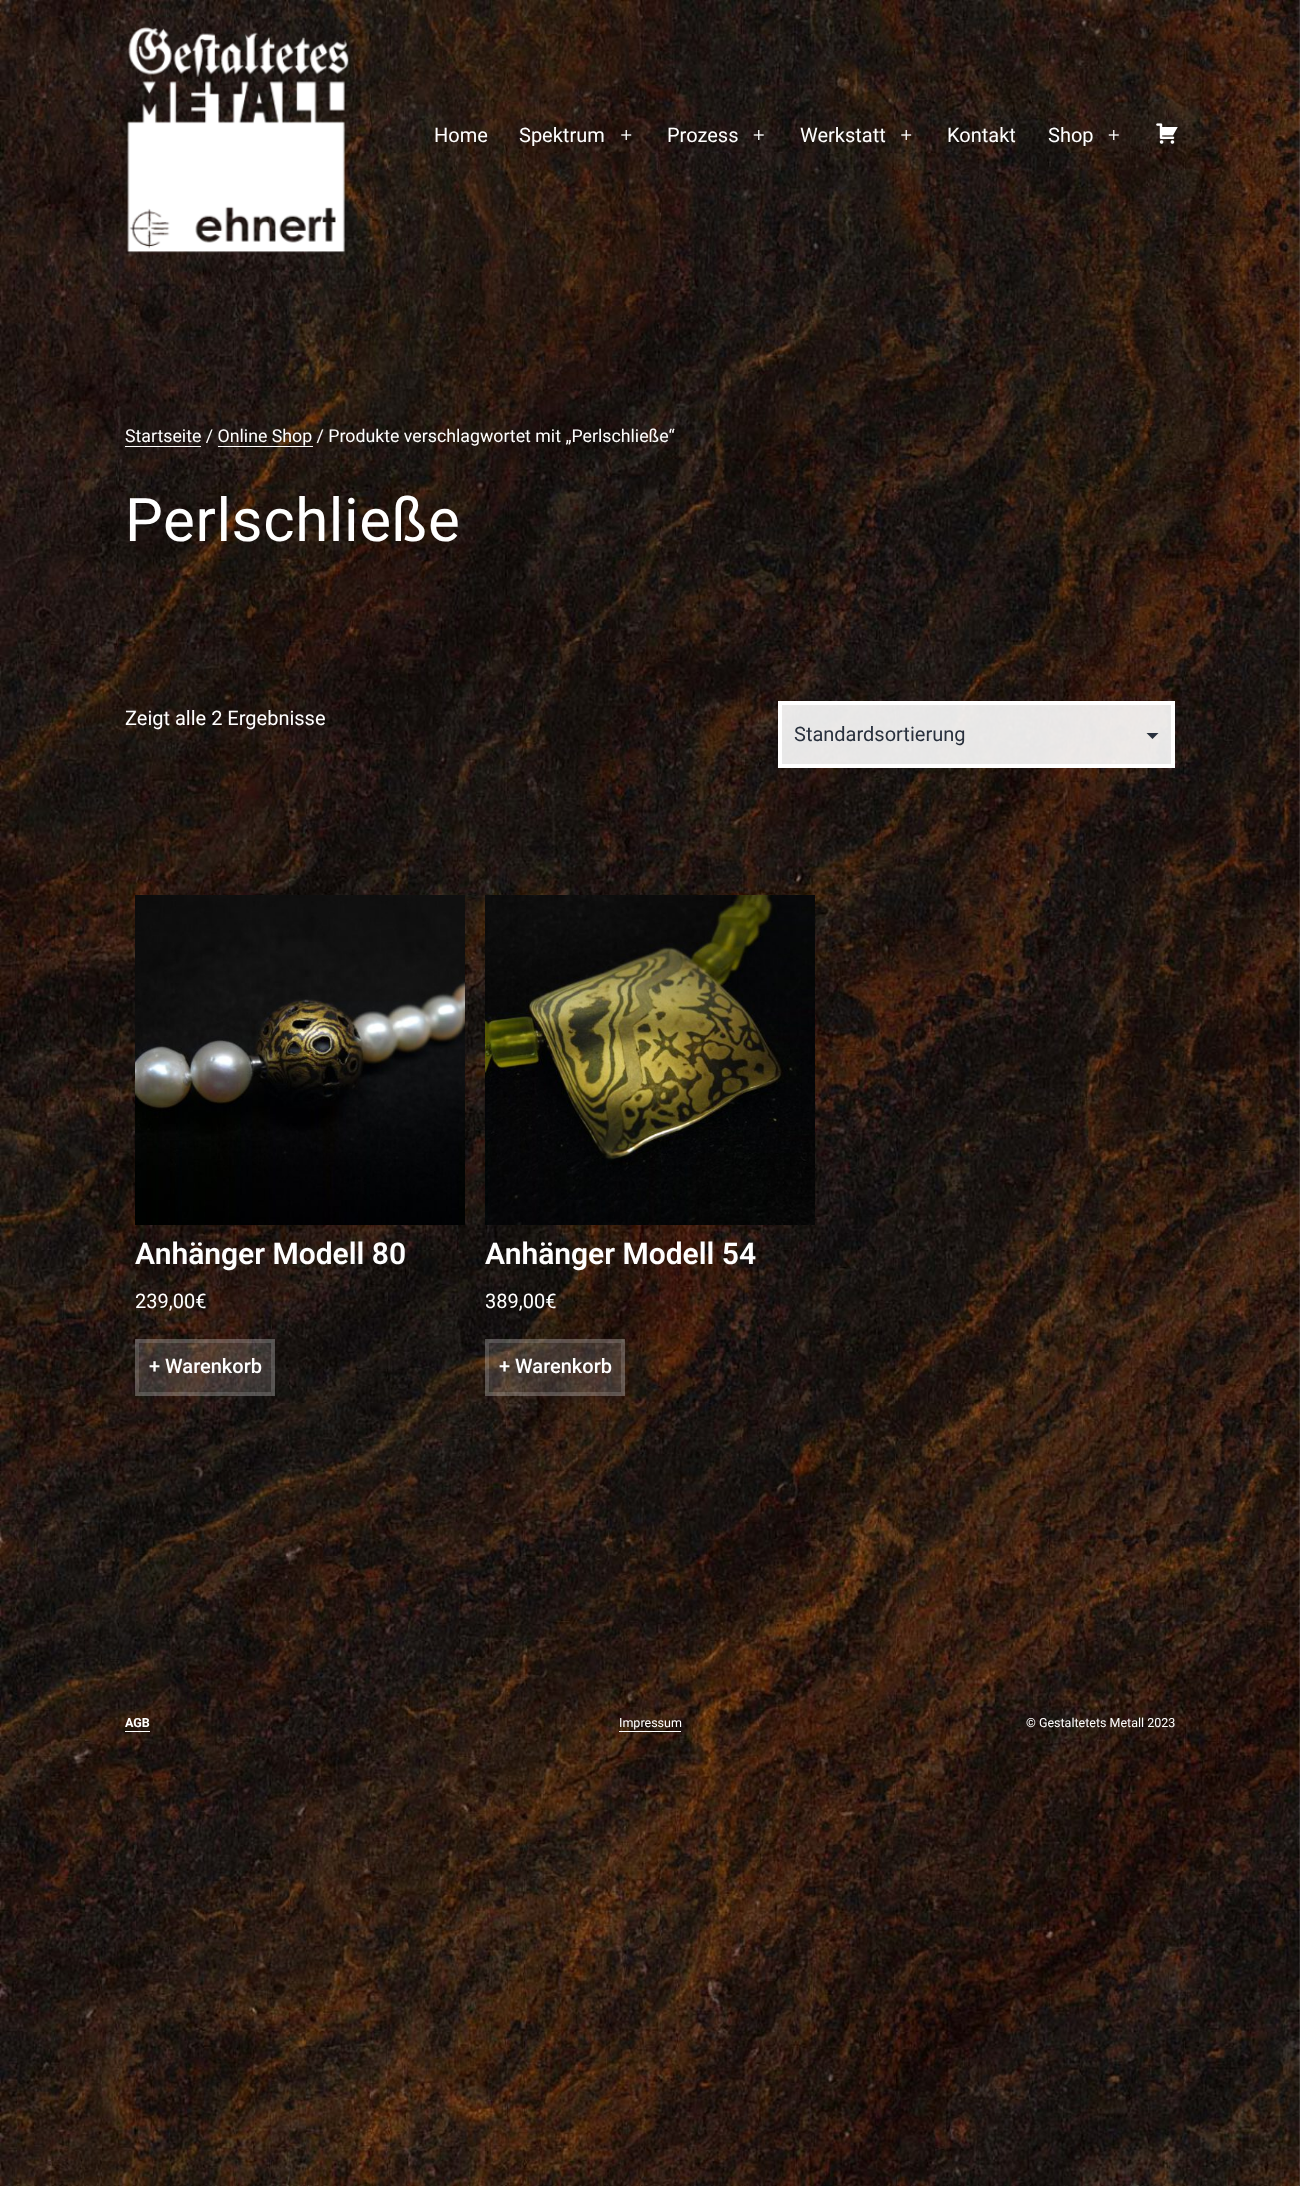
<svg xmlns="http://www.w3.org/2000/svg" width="1300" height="2186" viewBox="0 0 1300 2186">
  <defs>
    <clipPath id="clip1"><rect x="1146" y="733" width="13" height="12"/></clipPath>
  </defs>
  <rect width="100%" height="100%" fill="rgb(255,255,255)"/>
  <image x="0" y="0" width="1300" height="2186" href="pic1.png"/>
  <image x="127" y="27" width="222" height="226" href="pic2.png"/>
  <g font-family="Roboto" font-size="20" fill="rgb(255,255,255)">
    <text x="434" y="142">Home</text>
    <text x="519" y="142">Spektrum</text>
  </g>
  <image x="621" y="130" width="11" height="10" href="pic3.png"/>
  <text x="667" y="142" font-family="Roboto" font-size="20" fill="rgb(255,255,255)">Prozess</text>
  <image x="753" y="130" width="11" height="10" href="pic4.png"/>
  <text x="800" y="142" font-family="Roboto" font-size="20" fill="rgb(255,255,255)">Werkstatt</text>
  <image x="901" y="130" width="11" height="10" href="pic5.png"/>
  <g font-family="Roboto" font-size="20" fill="rgb(255,255,255)">
    <text x="947" y="142">Kontakt</text>
    <text x="1048" y="142">Shop</text>
  </g>
  <image x="1108" y="130" width="11" height="10" href="pic6.png"/>
  <image x="1156" y="123" width="22" height="21" href="pic7.png"/>
  <text x="125" y="442" font-family="Roboto" font-size="17.75" fill="rgb(255,255,255)">Startseite / Online Shop / Produkte verschlagwortet mit „Perlschließe“</text>
  <rect x="125" y="446" width="76" height="1" fill="rgb(255,255,255)"/>
  <rect x="218" y="446" width="95" height="1" fill="rgb(255,255,255)"/>
  <text x="125" y="541" font-family="Roboto" font-size="60" letter-spacing="0.6" fill="rgb(255,255,255)">Perlschließe</text>
  <text x="125" y="725" font-family="Roboto" font-size="20" fill="rgb(255,255,255)">Zeigt alle 2 Ergebnisse</text>
  <rect x="782" y="705" width="389" height="59" fill="rgba(255,255,255,0.9)"/>
  <g clip-path="url(#clip1)">
    <path d="M1146 732.5H1159L1152.5 739Z" fill="rgb(40,48,61)"/>
  </g>
  <rect x="780" y="703" width="393" height="63" fill="none" stroke="rgb(255,255,255)" stroke-width="4"/>
  <text x="794" y="741" font-family="Roboto" font-size="20" fill="rgb(40,48,61)">Standardsortierung</text>
  <image x="135" y="895" width="330" height="330" href="pic8.png"/>
  <text x="135" y="1264" font-family="Roboto" font-size="30" font-weight="600" fill="rgb(255,255,255)">Anhänger Modell 80</text>
  <text x="135" y="1308" font-family="Roboto" font-size="20" fill="rgb(255,255,255)">239,00€</text>
  <rect x="135" y="1339" width="140" height="57" fill="rgba(255,255,255,0.15)"/>
  <rect x="137" y="1341" width="136" height="53" fill="none" stroke="rgba(255,255,255,0.15)" stroke-width="4"/>
  <text x="149" y="1373" font-family="Roboto" font-size="20" font-weight="500" fill="rgb(255,255,255)">+ Warenkorb</text>
  <image x="485" y="895" width="330" height="330" href="pic9.png"/>
  <text x="485" y="1264" font-family="Roboto" font-size="30" font-weight="600" fill="rgb(255,255,255)">Anhänger Modell 54</text>
  <text x="485" y="1308" font-family="Roboto" font-size="20" fill="rgb(255,255,255)">389,00€</text>
  <rect x="485" y="1339" width="140" height="57" fill="rgba(255,255,255,0.15)"/>
  <rect x="487" y="1341" width="136" height="53" fill="none" stroke="rgba(255,255,255,0.15)" stroke-width="4"/>
  <text x="499" y="1373" font-family="Roboto" font-size="20" font-weight="500" fill="rgb(255,255,255)">+ Warenkorb</text>
  <text x="125" y="1727" font-family="Roboto" font-size="12.5" font-weight="bold" fill="rgb(255,255,255)">AGB</text>
  <rect x="125" y="1731" width="25" height="1" fill="rgb(255,255,255)"/>
  <text x="619" y="1727" font-family="Roboto" font-size="12.5" fill="rgb(255,255,255)">Impressum</text>
  <rect x="619" y="1731" width="62" height="1" fill="rgb(255,255,255)"/>
  <text x="1026" y="1727" font-family="Roboto" font-size="12.5" fill="rgb(255,255,255)">© Gestaltetets Metall 2023</text>
</svg>
